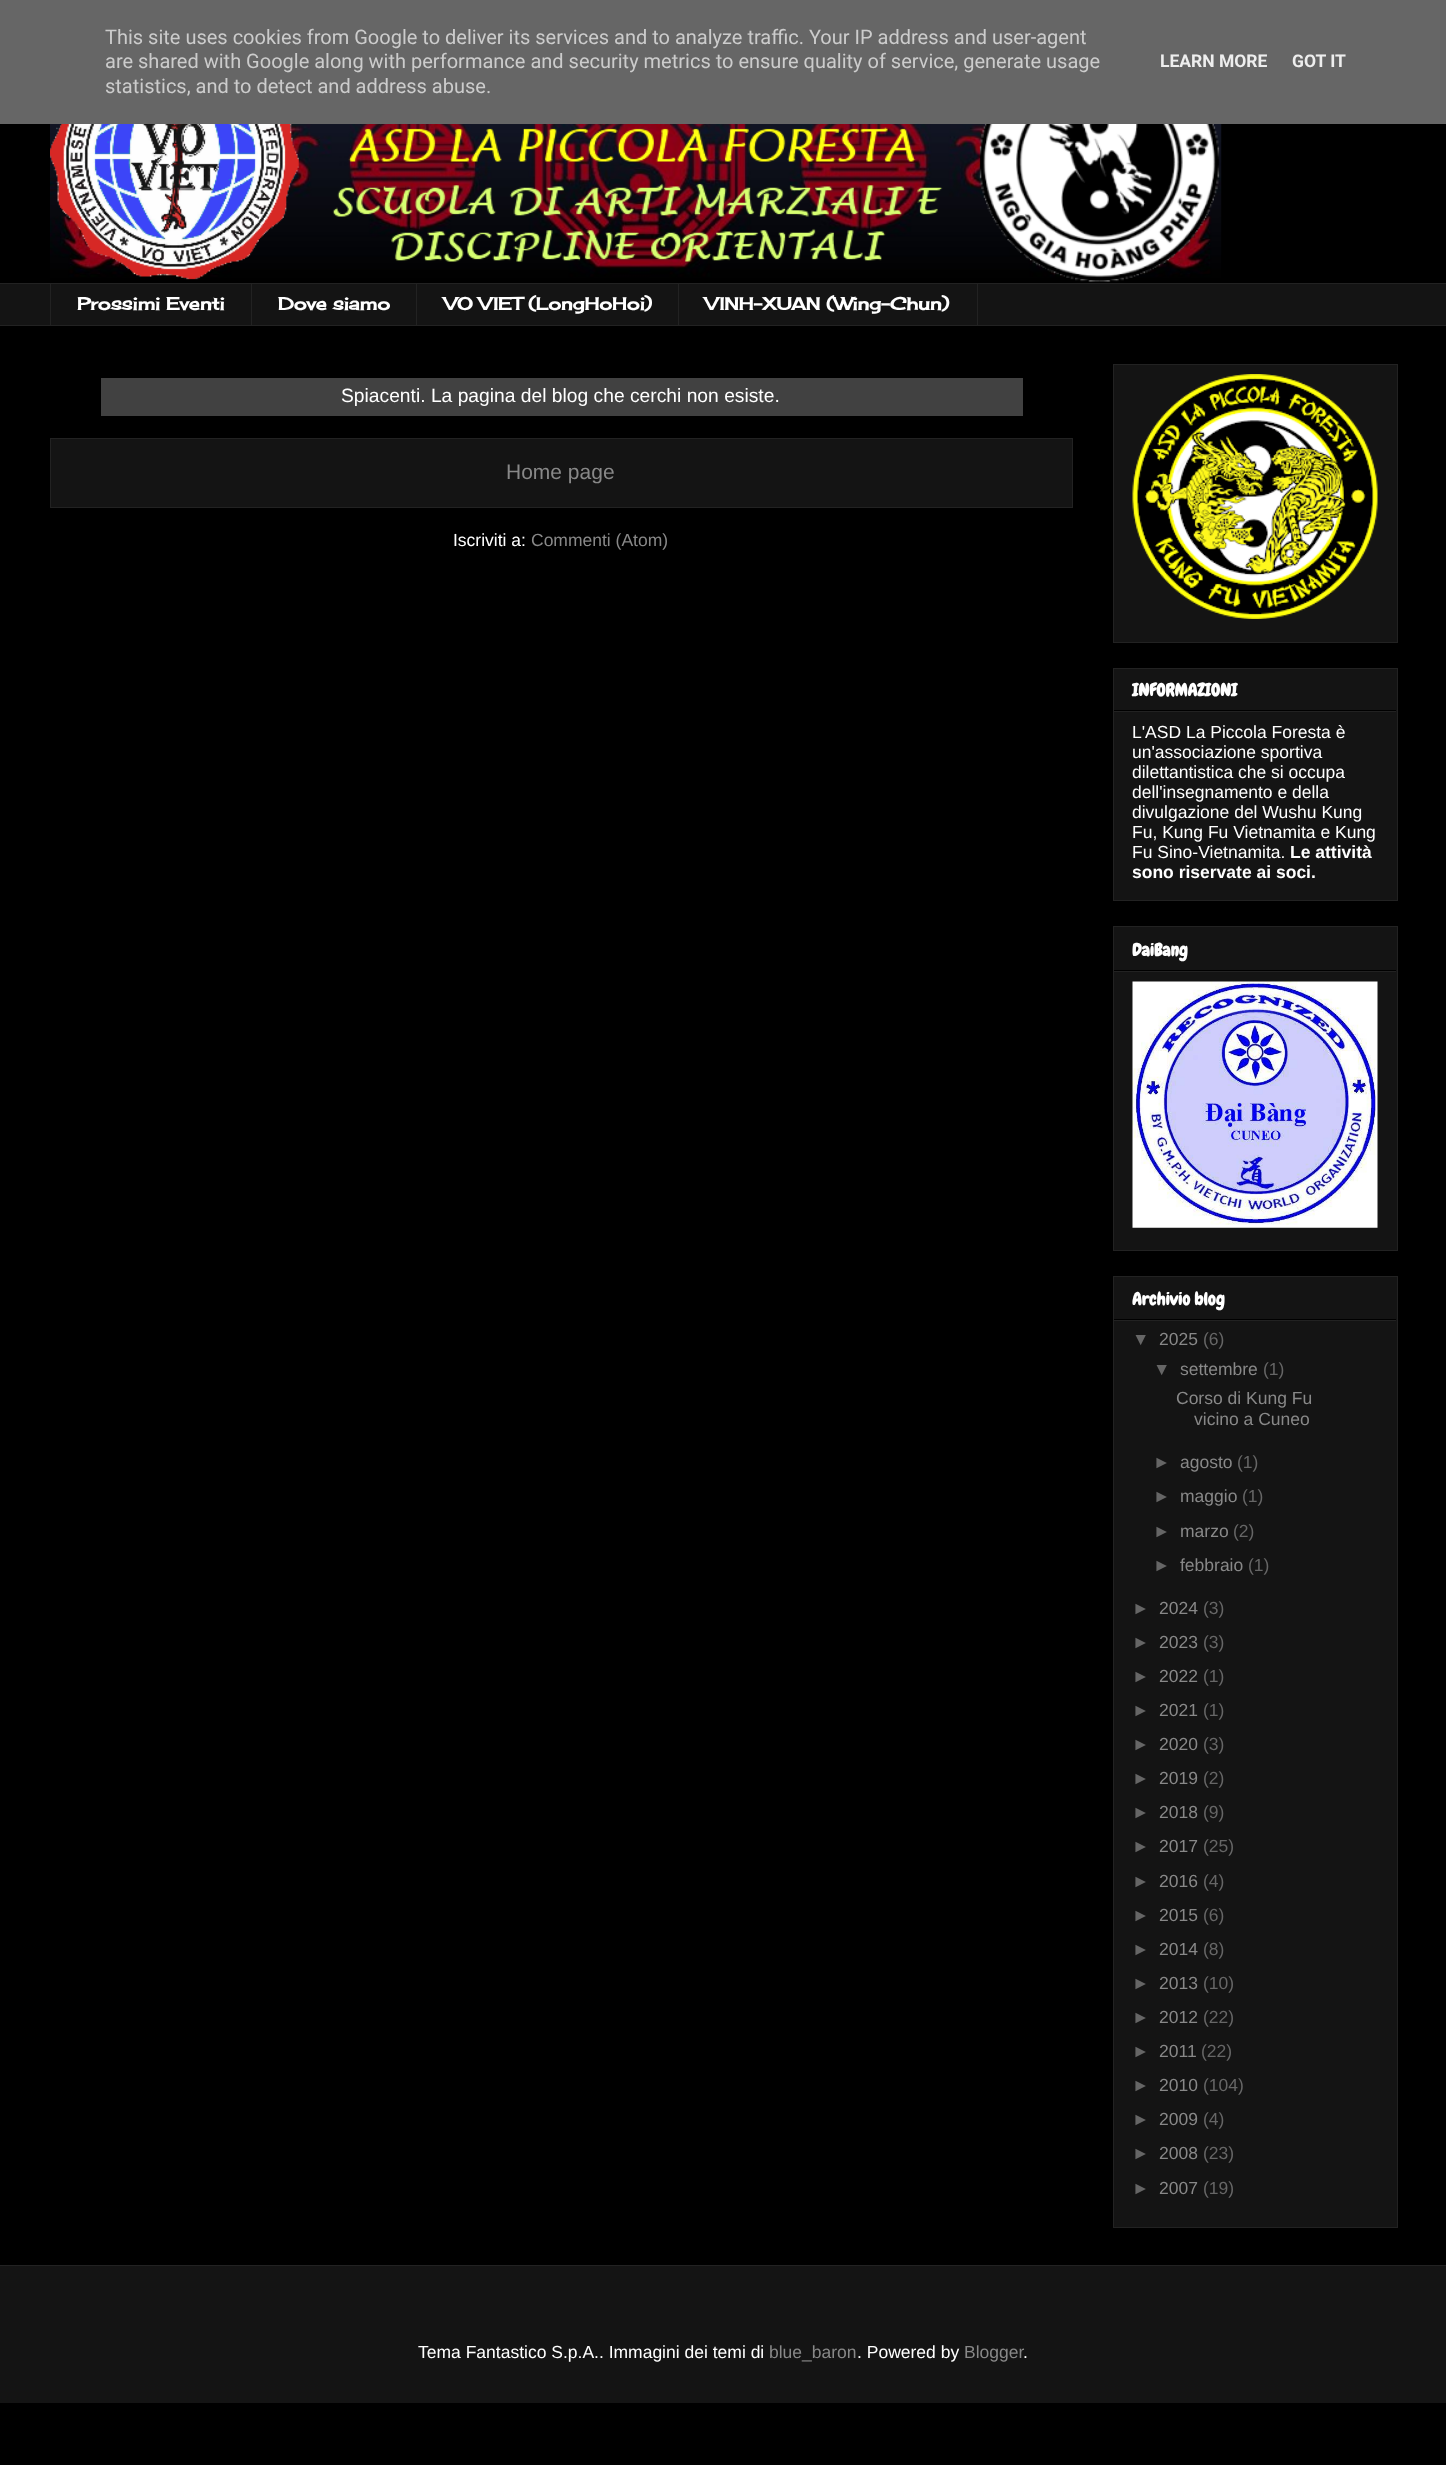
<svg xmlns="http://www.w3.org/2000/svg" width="1446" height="2465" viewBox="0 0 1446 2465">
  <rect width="100%" height="100%" fill="rgb(0,0,0)"/>
  <rect x="0" y="0" width="1446" height="124" fill="rgb(102,102,102)"/>
  <g font-family="Roboto" font-size="20" fill="rgb(204,204,204)">
    <text>
      <tspan x="105" y="44">This site uses cookies from Google to deliver its services and to analyze traffic. Your IP address and user-agent</tspan>
      <tspan x="105" y="68">are shared with Google along with performance and security metrics to ensure quality of service, generate usage</tspan>
      <tspan x="105" y="93">statistics, and to detect and address abuse.</tspan>
    </text>
  </g>
  <g font-family="Roboto" font-size="17.5" font-weight="bold" fill="rgb(238,238,238)">
    <text x="1160" y="67">LEARN MORE</text>
    <text x="1292" y="67">GOT IT</text>
  </g>
  <image x="50" y="124" width="1172" height="158" href="pic1.png"/>
  <rect x="0" y="284" width="1446" height="41" fill="rgb(20,20,20)"/>
  <rect x="0" y="283" width="1446" height="1" fill="rgb(34,34,34)"/>
  <rect x="50" y="283" width="1" height="43" fill="rgb(34,34,34)"/>
  <text x="77" y="310" font-family="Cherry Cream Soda" font-size="17.5" font-weight="bold" fill="rgb(255,255,255)">Prossimi Eventi</text>
  <rect x="251" y="283" width="1" height="43" fill="rgb(34,34,34)"/>
  <text x="278" y="310" font-family="Cherry Cream Soda" font-size="17.5" font-weight="bold" fill="rgb(255,255,255)">Dove siamo</text>
  <rect x="416" y="283" width="1" height="43" fill="rgb(34,34,34)"/>
  <text x="444" y="310" font-family="Cherry Cream Soda" font-size="17.5" font-weight="bold" fill="rgb(255,255,255)">VO VIET (LongHoHoi)</text>
  <rect x="678.5" y="283.5" width="299" height="42" fill="none" stroke="rgb(34,34,34)"/>
  <text x="705" y="310" font-family="Cherry Cream Soda" font-size="17.5" font-weight="bold" fill="rgb(255,255,255)">VINH-XUAN (Wing-Chun)</text>
  <rect x="0" y="325" width="1446" height="1" fill="rgb(34,34,34)"/>
  <rect x="101" y="378" width="922" height="38" fill="rgb(65,65,65)"/>
  <text x="341" y="402" font-family="Liberation Sans" font-size="19.25" fill="rgb(255,255,255)">Spiacenti. La pagina del blog che cerchi non esiste.</text>
  <rect x="50.5" y="438.5" width="1022" height="69" fill="rgb(20,20,20)" stroke="rgb(34,34,34)"/>
  <text x="506" y="479" font-family="Liberation Sans" font-size="21" fill="rgb(136,136,136)">Home page</text>
  <text x="453" y="546" font-family="Liberation Sans" font-size="17.5" fill="rgb(255,255,255)">Iscriviti a:</text>
  <text x="531" y="546" font-family="Liberation Sans" font-size="17.5" fill="rgb(136,136,136)">Commenti (Atom)</text>
  <rect x="1113.5" y="364.5" width="284" height="278" fill="rgb(20,20,20)" stroke="rgb(34,34,34)"/>
  <image x="1132" y="374" width="246" height="245" href="pic2.png"/>
  <rect x="1113.5" y="668.5" width="284" height="232" fill="rgb(20,20,20)" stroke="rgb(34,34,34)"/>
  <rect x="1114" y="710" width="282" height="1" fill="rgb(0,0,0)"/>
  <text x="1132" y="696" font-family="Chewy" font-size="17.5" font-weight="bold" fill="rgb(255,255,255)">INFORMAZIONI</text>
  <rect x="1114" y="711" width="282" height="1" fill="rgb(34,34,34)"/>
  <g font-family="Liberation Sans" font-size="17.5" fill="rgb(255,255,255)">
    <text>
      <tspan x="1132" y="738">L'ASD La Piccola Foresta è</tspan>
      <tspan x="1132" y="758">un'associazione sportiva</tspan>
      <tspan x="1132" y="778">dilettantistica che si occupa</tspan>
      <tspan x="1132" y="798">dell'insegnamento e della</tspan>
      <tspan x="1132" y="818">divulgazione del Wushu Kung</tspan>
      <tspan x="1132" y="838">Fu, Kung Fu Vietnamita e Kung</tspan>
      <tspan x="1132" y="858">Fu Sino-Vietnamita.</tspan>
    </text>
  </g>
  <g font-family="Liberation Sans" font-size="17.5" font-weight="bold" fill="rgb(255,255,255)">
    <text x="1290" y="858">Le attività</text>
    <text x="1132" y="878">sono riservate ai soci.</text>
  </g>
  <rect x="1113.5" y="926.5" width="284" height="324" fill="rgb(20,20,20)" stroke="rgb(34,34,34)"/>
  <rect x="1114" y="970" width="282" height="1" fill="rgb(0,0,0)"/>
  <text x="1132" y="956" font-family="Chewy" font-size="17.5" font-weight="bold" fill="rgb(255,255,255)">DaiBang</text>
  <rect x="1114" y="971" width="282" height="1" fill="rgb(34,34,34)"/>
  <image x="1132" y="981" width="246" height="247" href="pic3.png"/>
  <rect x="1113.5" y="1276.5" width="284" height="951" fill="rgb(20,20,20)" stroke="rgb(34,34,34)"/>
  <rect x="1114" y="1319" width="282" height="1" fill="rgb(0,0,0)"/>
  <text x="1132" y="1305" font-family="Chewy" font-size="17.5" font-weight="bold" fill="rgb(255,255,255)">Archivio blog</text>
  <rect x="1114" y="1320" width="282" height="1" fill="rgb(34,34,34)"/>
  <text x="1132" y="1345" font-family="Liberation Sans" font-size="17.5" fill="rgb(102,102,102)">▼</text>
  <text x="1159" y="1345" font-family="Liberation Sans" font-size="17.5" fill="rgb(136,136,136)">2025</text>
  <g font-family="Liberation Sans" font-size="17.5" fill="rgb(102,102,102)">
    <text x="1203" y="1345">(6)</text>
    <text x="1153" y="1375">▼</text>
  </g>
  <text x="1180" y="1375" font-family="Liberation Sans" font-size="17.5" fill="rgb(136,136,136)">settembre</text>
  <text x="1263" y="1375" font-family="Liberation Sans" font-size="17.5" fill="rgb(102,102,102)">(1)</text>
  <g font-family="Liberation Sans" font-size="17.5" fill="rgb(136,136,136)">
    <text x="1176" y="1404">Corso di Kung Fu</text>
    <text x="1194" y="1425">vicino a Cuneo</text>
  </g>
  <text x="1153" y="1468" font-family="Liberation Sans" font-size="17.5" fill="rgb(102,102,102)">►</text>
  <text x="1180" y="1468" font-family="Liberation Sans" font-size="17.5" fill="rgb(136,136,136)">agosto</text>
  <g font-family="Liberation Sans" font-size="17.5" fill="rgb(102,102,102)">
    <text x="1237" y="1468">(1)</text>
    <text x="1153" y="1502">►</text>
  </g>
  <text x="1180" y="1502" font-family="Liberation Sans" font-size="17.5" fill="rgb(136,136,136)">maggio</text>
  <g font-family="Liberation Sans" font-size="17.5" fill="rgb(102,102,102)">
    <text x="1242" y="1502">(1)</text>
    <text x="1153" y="1537">►</text>
  </g>
  <text x="1180" y="1537" font-family="Liberation Sans" font-size="17.5" fill="rgb(136,136,136)">marzo</text>
  <g font-family="Liberation Sans" font-size="17.5" fill="rgb(102,102,102)">
    <text x="1233" y="1537">(2)</text>
    <text x="1153" y="1571">►</text>
  </g>
  <text x="1180" y="1571" font-family="Liberation Sans" font-size="17.5" fill="rgb(136,136,136)">febbraio</text>
  <g font-family="Liberation Sans" font-size="17.5" fill="rgb(102,102,102)">
    <text x="1248" y="1571">(1)</text>
    <text x="1132" y="1614">►</text>
  </g>
  <text x="1159" y="1614" font-family="Liberation Sans" font-size="17.5" fill="rgb(136,136,136)">2024</text>
  <g font-family="Liberation Sans" font-size="17.5" fill="rgb(102,102,102)">
    <text x="1203" y="1614">(3)</text>
    <text x="1132" y="1648">►</text>
  </g>
  <text x="1159" y="1648" font-family="Liberation Sans" font-size="17.5" fill="rgb(136,136,136)">2023</text>
  <g font-family="Liberation Sans" font-size="17.5" fill="rgb(102,102,102)">
    <text x="1203" y="1648">(3)</text>
    <text x="1132" y="1682">►</text>
  </g>
  <text x="1159" y="1682" font-family="Liberation Sans" font-size="17.5" fill="rgb(136,136,136)">2022</text>
  <g font-family="Liberation Sans" font-size="17.5" fill="rgb(102,102,102)">
    <text x="1203" y="1682">(1)</text>
    <text x="1132" y="1716">►</text>
  </g>
  <text x="1159" y="1716" font-family="Liberation Sans" font-size="17.5" fill="rgb(136,136,136)">2021</text>
  <g font-family="Liberation Sans" font-size="17.5" fill="rgb(102,102,102)">
    <text x="1203" y="1716">(1)</text>
    <text x="1132" y="1750">►</text>
  </g>
  <text x="1159" y="1750" font-family="Liberation Sans" font-size="17.5" fill="rgb(136,136,136)">2020</text>
  <g font-family="Liberation Sans" font-size="17.5" fill="rgb(102,102,102)">
    <text x="1203" y="1750">(3)</text>
    <text x="1132" y="1784">►</text>
  </g>
  <text x="1159" y="1784" font-family="Liberation Sans" font-size="17.5" fill="rgb(136,136,136)">2019</text>
  <g font-family="Liberation Sans" font-size="17.5" fill="rgb(102,102,102)">
    <text x="1203" y="1784">(2)</text>
    <text x="1132" y="1818">►</text>
  </g>
  <text x="1159" y="1818" font-family="Liberation Sans" font-size="17.5" fill="rgb(136,136,136)">2018</text>
  <g font-family="Liberation Sans" font-size="17.5" fill="rgb(102,102,102)">
    <text x="1203" y="1818">(9)</text>
    <text x="1132" y="1852">►</text>
  </g>
  <text x="1159" y="1852" font-family="Liberation Sans" font-size="17.5" fill="rgb(136,136,136)">2017</text>
  <g font-family="Liberation Sans" font-size="17.5" fill="rgb(102,102,102)">
    <text x="1203" y="1852">(25)</text>
    <text x="1132" y="1887">►</text>
  </g>
  <text x="1159" y="1887" font-family="Liberation Sans" font-size="17.5" fill="rgb(136,136,136)">2016</text>
  <g font-family="Liberation Sans" font-size="17.5" fill="rgb(102,102,102)">
    <text x="1203" y="1887">(4)</text>
    <text x="1132" y="1921">►</text>
  </g>
  <text x="1159" y="1921" font-family="Liberation Sans" font-size="17.5" fill="rgb(136,136,136)">2015</text>
  <g font-family="Liberation Sans" font-size="17.5" fill="rgb(102,102,102)">
    <text x="1203" y="1921">(6)</text>
    <text x="1132" y="1955">►</text>
  </g>
  <text x="1159" y="1955" font-family="Liberation Sans" font-size="17.5" fill="rgb(136,136,136)">2014</text>
  <g font-family="Liberation Sans" font-size="17.5" fill="rgb(102,102,102)">
    <text x="1203" y="1955">(8)</text>
    <text x="1132" y="1989">►</text>
  </g>
  <text x="1159" y="1989" font-family="Liberation Sans" font-size="17.5" fill="rgb(136,136,136)">2013</text>
  <g font-family="Liberation Sans" font-size="17.5" fill="rgb(102,102,102)">
    <text x="1203" y="1989">(10)</text>
    <text x="1132" y="2023">►</text>
  </g>
  <text x="1159" y="2023" font-family="Liberation Sans" font-size="17.5" fill="rgb(136,136,136)">2012</text>
  <g font-family="Liberation Sans" font-size="17.5" fill="rgb(102,102,102)">
    <text x="1203" y="2023">(22)</text>
    <text x="1132" y="2057">►</text>
  </g>
  <text x="1159" y="2057" font-family="Liberation Sans" font-size="17.5" fill="rgb(136,136,136)">2011</text>
  <g font-family="Liberation Sans" font-size="17.5" fill="rgb(102,102,102)">
    <text x="1201" y="2057">(22)</text>
    <text x="1132" y="2091">►</text>
  </g>
  <text x="1159" y="2091" font-family="Liberation Sans" font-size="17.5" fill="rgb(136,136,136)">2010</text>
  <g font-family="Liberation Sans" font-size="17.5" fill="rgb(102,102,102)">
    <text x="1203" y="2091">(104)</text>
    <text x="1132" y="2125">►</text>
  </g>
  <text x="1159" y="2125" font-family="Liberation Sans" font-size="17.5" fill="rgb(136,136,136)">2009</text>
  <g font-family="Liberation Sans" font-size="17.5" fill="rgb(102,102,102)">
    <text x="1203" y="2125">(4)</text>
    <text x="1132" y="2159">►</text>
  </g>
  <text x="1159" y="2159" font-family="Liberation Sans" font-size="17.5" fill="rgb(136,136,136)">2008</text>
  <g font-family="Liberation Sans" font-size="17.5" fill="rgb(102,102,102)">
    <text x="1203" y="2159">(23)</text>
    <text x="1132" y="2194">►</text>
  </g>
  <text x="1159" y="2194" font-family="Liberation Sans" font-size="17.5" fill="rgb(136,136,136)">2007</text>
  <text x="1203" y="2194" font-family="Liberation Sans" font-size="17.5" fill="rgb(102,102,102)">(19)</text>
  <rect x="0" y="2266" width="1446" height="137" fill="rgb(20,20,20)"/>
  <rect x="0" y="2265" width="1446" height="1" fill="rgb(34,34,34)"/>
  <text x="418" y="2358" font-family="Liberation Sans" font-size="17.5" fill="rgb(255,255,255)">Tema Fantastico S.p.A.. Immagini dei temi di</text>
  <text x="769" y="2358" font-family="Liberation Sans" font-size="17.5" fill="rgb(136,136,136)">blue_baron</text>
  <text x="857" y="2358" font-family="Liberation Sans" font-size="17.5" fill="rgb(255,255,255)">. Powered by</text>
  <text x="964" y="2358" font-family="Liberation Sans" font-size="17.5" fill="rgb(136,136,136)">Blogger</text>
  <text x="1023" y="2358" font-family="Liberation Sans" font-size="17.5" fill="rgb(255,255,255)">.</text>
</svg>
